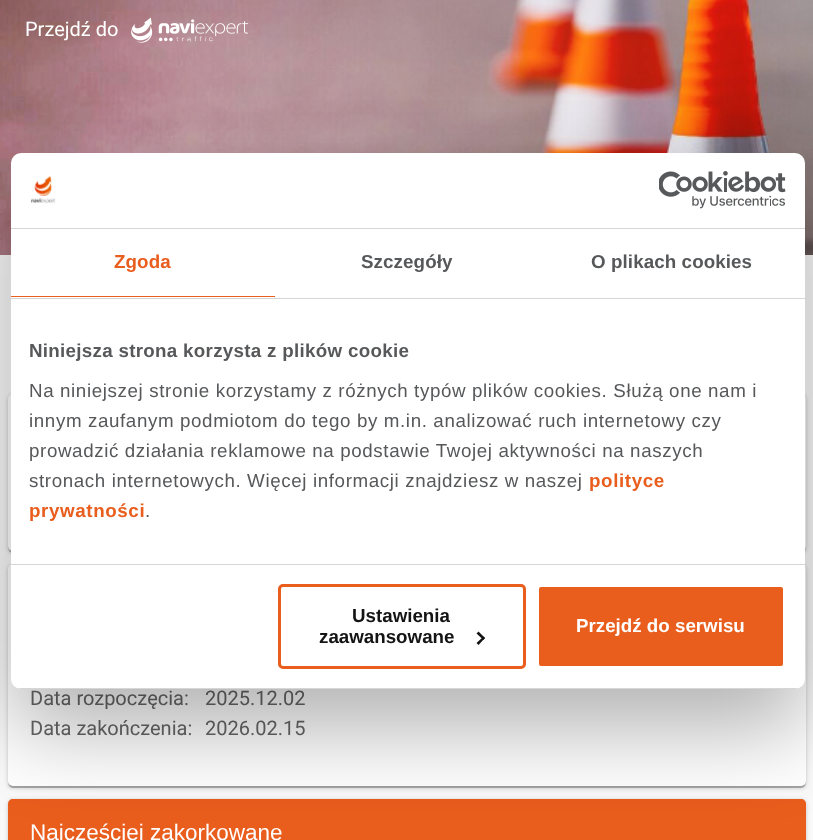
<svg xmlns="http://www.w3.org/2000/svg" width="813" height="840" viewBox="0 0 813 840">
  <defs>
    <clipPath id="clip1"><rect x="11" y="153" width="794" height="536" rx="10"/></clipPath>
  </defs>
  <rect width="100%" height="100%" fill="rgb(249,249,249)"/>
  <image x="0" y="0" width="813" height="255" href="pic1.png"/>
  <text x="25" y="36" font-family="Roboto" font-size="20" fill="rgb(255,255,255)">Przejdź do</text>
  <image x="131" y="17" width="118" height="26" href="pic2.png"/>
  <rect x="9" y="398" width="796" height="155" rx="4" fill="rgba(0,0,0,0.12)" filter="blur(0.5px)"/>
  <rect x="8" y="395" width="798" height="158" rx="5" fill="rgba(0,0,0,0.14)" filter="blur(0.5px)"/>
  <rect x="8" y="395" width="798" height="158" rx="5" fill="rgba(0,0,0,0.2)" filter="blur(2px)"/>
  <rect x="8" y="394" width="798" height="157" rx="5" fill="rgb(255,255,255)"/>
  <rect x="9" y="568" width="796" height="220" rx="4" fill="rgba(0,0,0,0.12)" filter="blur(0.5px)"/>
  <rect x="8" y="565" width="798" height="223" rx="5" fill="rgba(0,0,0,0.14)" filter="blur(0.5px)"/>
  <rect x="8" y="565" width="798" height="223" rx="5" fill="rgba(0,0,0,0.2)" filter="blur(2px)"/>
  <rect x="8" y="564" width="798" height="222" rx="5" fill="rgb(255,255,255)"/>
  <g font-family="Roboto" font-size="20" fill="rgb(102,102,102)">
    <text x="30" y="705">Data rozpoczęcia:</text>
    <text x="205" y="705">2025.12.02</text>
    <text x="30" y="735">Data zakończenia:</text>
    <text x="205" y="735">2026.02.15</text>
  </g>
  <rect x="8" y="800" width="798" height="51" rx="5" fill="rgba(0,0,0,0.2)" filter="blur(2px)"/>
  <path d="M13 799H801C804 799 806 801 806 804V840H8V804C8 801 10 799 13 799Z" fill="rgb(233,93,29)"/>
  <text x="30" y="840" font-family="Liberation Sans" font-size="22.5" fill="rgb(255,255,255)">Najczęściej zakorkowane</text>
  <rect x="11" y="193" width="794" height="536" rx="10" fill="rgba(0,0,0,0.3)" filter="blur(42.5px)"/>
  <rect x="11" y="153" width="794" height="536" rx="10" fill="rgb(255,255,255)"/>
  <rect x="11" y="228" width="794" height="1" fill="rgb(214,214,214)"/>
  <image x="30" y="175" width="26" height="29" href="pic3.png"/>
  <image x="659" y="171" width="127" height="38" href="pic4.png"/>
  <rect x="11" y="298" width="794" height="1" fill="rgb(214,214,214)"/>
  <rect x="11" y="296" width="264" height="1" fill="rgb(233,93,29)"/>
  <text x="114" y="268" font-family="Liberation Sans" font-size="18.75" font-weight="bold" letter-spacing="0.1" fill="rgb(233,93,29)">Zgoda</text>
  <g font-family="Liberation Sans" font-size="18.75" font-weight="bold" letter-spacing="0.1" fill="rgb(87,88,90)">
    <text x="361" y="268">Szczegóły</text>
    <text x="591" y="268">O plikach cookies</text>
  </g>
  <rect x="11" y="564" width="794" height="1" fill="rgb(214,214,214)"/>
  <text x="29" y="357" font-family="Liberation Sans" font-size="18.75" font-weight="bold" letter-spacing="0.3" fill="rgb(87,88,90)">Niniejsza strona korzysta z plików cookie</text>
  <g font-family="Liberation Sans" font-size="18.75" letter-spacing="0.62" fill="rgb(87,88,90)">
    <text>
      <tspan x="29" y="397">Na niniejszej stronie korzystamy z różnych typów plików cookies. Służą one nam i</tspan>
      <tspan x="29" y="427">innym zaufanym podmiotom do tego by m.in. analizować ruch internetowy czy</tspan>
      <tspan x="29" y="457">prowadzić działania reklamowe na podstawie Twojej aktywności na naszych</tspan>
      <tspan x="29" y="487">stronach internetowych. Więcej informacji znajdziesz w naszej</tspan>
    </text>
  </g>
  <g font-family="Liberation Sans" font-size="18.75" font-weight="bold" letter-spacing="0.62" fill="rgb(233,93,29)">
    <text x="589" y="487">polityce</text>
    <text x="29" y="517">prywatności</text>
  </g>
  <text x="145" y="517" font-family="Liberation Sans" font-size="18.75" letter-spacing="0.62" fill="rgb(87,88,90)">.</text>
  <g clip-path="url(#clip1)">
    <rect x="11" y="688" width="794" height="1" fill="rgb(214,214,214)"/>
  </g>
  <rect x="279.5" y="585.5" width="245" height="82" rx="3.5" fill="none" stroke="rgb(233,93,29)" stroke-width="3"/>
  <g font-family="Liberation Sans" font-size="18.75" font-weight="bold" fill="rgb(20,20,20)">
    <text x="352" y="622">Ustawienia</text>
    <text x="319" y="643">zaawansowane</text>
  </g>
  <path d="M478.5 631.5L485 638L483.5 640L476.5 633.5Z" fill="rgb(20,20,20)"/>
  <path d="M483.5 636.5L485 638L478.5 645L476.5 643Z" fill="rgb(20,20,20)"/>
  <rect x="537.5" y="585.5" width="247" height="82" rx="3.5" fill="rgb(233,93,29)" stroke="rgb(255,255,255)" stroke-width="3"/>
  <text x="576" y="632" font-family="Liberation Sans" font-size="18.75" font-weight="bold" fill="rgb(255,255,255)">Przejdź do serwisu</text>
</svg>
